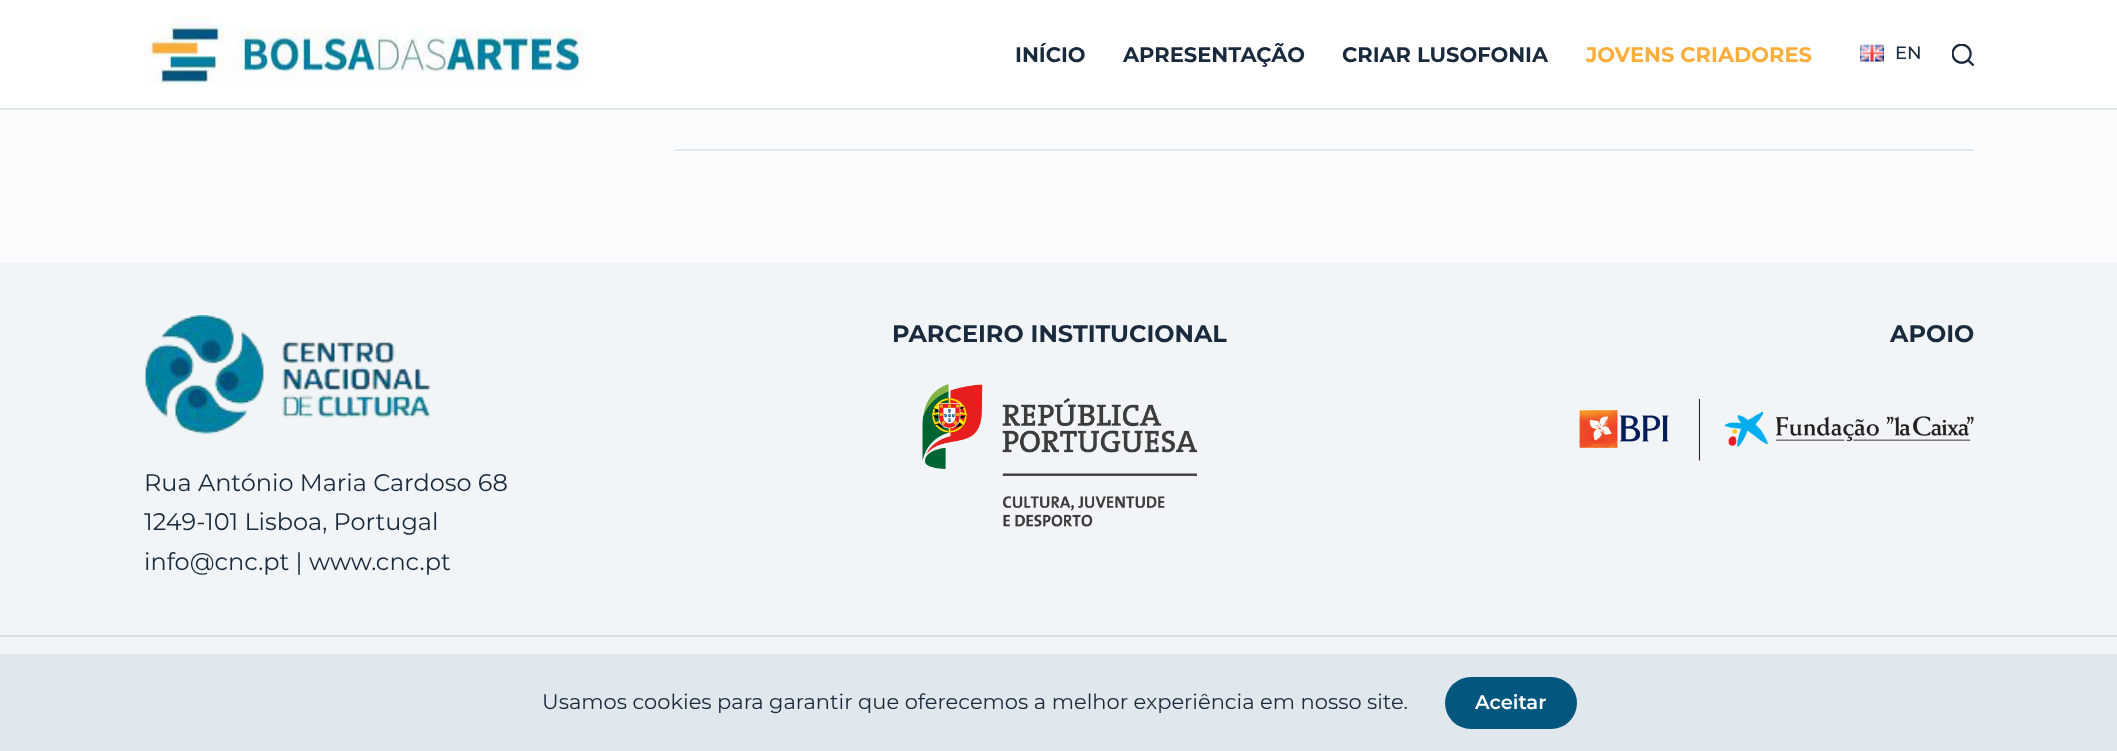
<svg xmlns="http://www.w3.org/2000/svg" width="2117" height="751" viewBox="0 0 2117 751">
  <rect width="100%" height="100%" fill="rgb(250,251,252)"/>
  <rect x="0" y="0" width="2117" height="108" fill="rgb(255,255,255)"/>
  <rect x="0" y="108" width="2117" height="2" fill="rgb(225,232,237)"/>
  <image x="144" y="16" width="441" height="68" href="pic1.png"/>
  <g font-family="Montserrat" font-size="21" font-weight="bold" fill="rgb(25,42,61)">
    <text x="1015" y="62">INÍCIO</text>
    <text x="1123" y="62">APRESENTAÇÃO</text>
    <text x="1342" y="62">CRIAR LUSOFONIA</text>
  </g>
  <text x="1586" y="62" font-family="Montserrat" font-size="21" font-weight="bold" fill="rgb(251,174,60)">JOVENS CRIADORES</text>
  <image x="1860" y="44" width="24" height="18" href="pic2.png"/>
  <text x="1895" y="59" font-family="Montserrat" font-size="18" font-weight="500" fill="rgb(25,42,61)">EN</text>
  <image x="1952" y="44" width="22" height="22" href="pic3.png"/>
  <rect x="675" y="149" width="1299" height="2" fill="rgb(225,232,237)"/>
  <rect x="0" y="263" width="2117" height="391" fill="rgb(242,245,247)"/>
  <text x="892" y="342" font-family="Montserrat" font-size="24" font-weight="bold" fill="rgb(25,42,61)">PARCEIRO INSTITUCIONAL</text>
  <image x="922" y="384" width="275" height="143" href="pic4.png"/>
  <text x="1890" y="342" font-family="Montserrat" font-size="24" font-weight="bold" fill="rgb(25,42,61)">APOIO</text>
  <image x="1579" y="399" width="395" height="62" href="pic5.png"/>
  <image x="144" y="315" width="287" height="119" href="pic6.png"/>
  <g font-family="Montserrat" font-size="24" fill="rgb(25,42,61)">
    <text>
      <tspan x="144" y="491">Rua António Maria Cardoso 68</tspan>
      <tspan x="144" y="530">1249-101 Lisboa, Portugal</tspan>
      <tspan x="144" y="570">info@cnc.pt | www.cnc.pt</tspan>
    </text>
  </g>
  <rect x="0" y="635" width="2117" height="2" fill="rgb(221,221,221)"/>
  <rect x="0" y="654" width="2117" height="97" fill="rgb(225,232,237)"/>
  <text x="542" y="709" font-family="Montserrat" font-size="21" fill="rgb(25,42,61)">Usamos cookies para garantir que oferecemos a melhor experiência em nosso site.</text>
  <rect x="1445" y="677" width="132" height="52" rx="26" fill="rgb(3,86,126)"/>
  <text x="1475" y="709" font-family="Montserrat" font-size="19.5" font-weight="600" fill="rgb(255,255,255)">Aceitar</text>
</svg>
